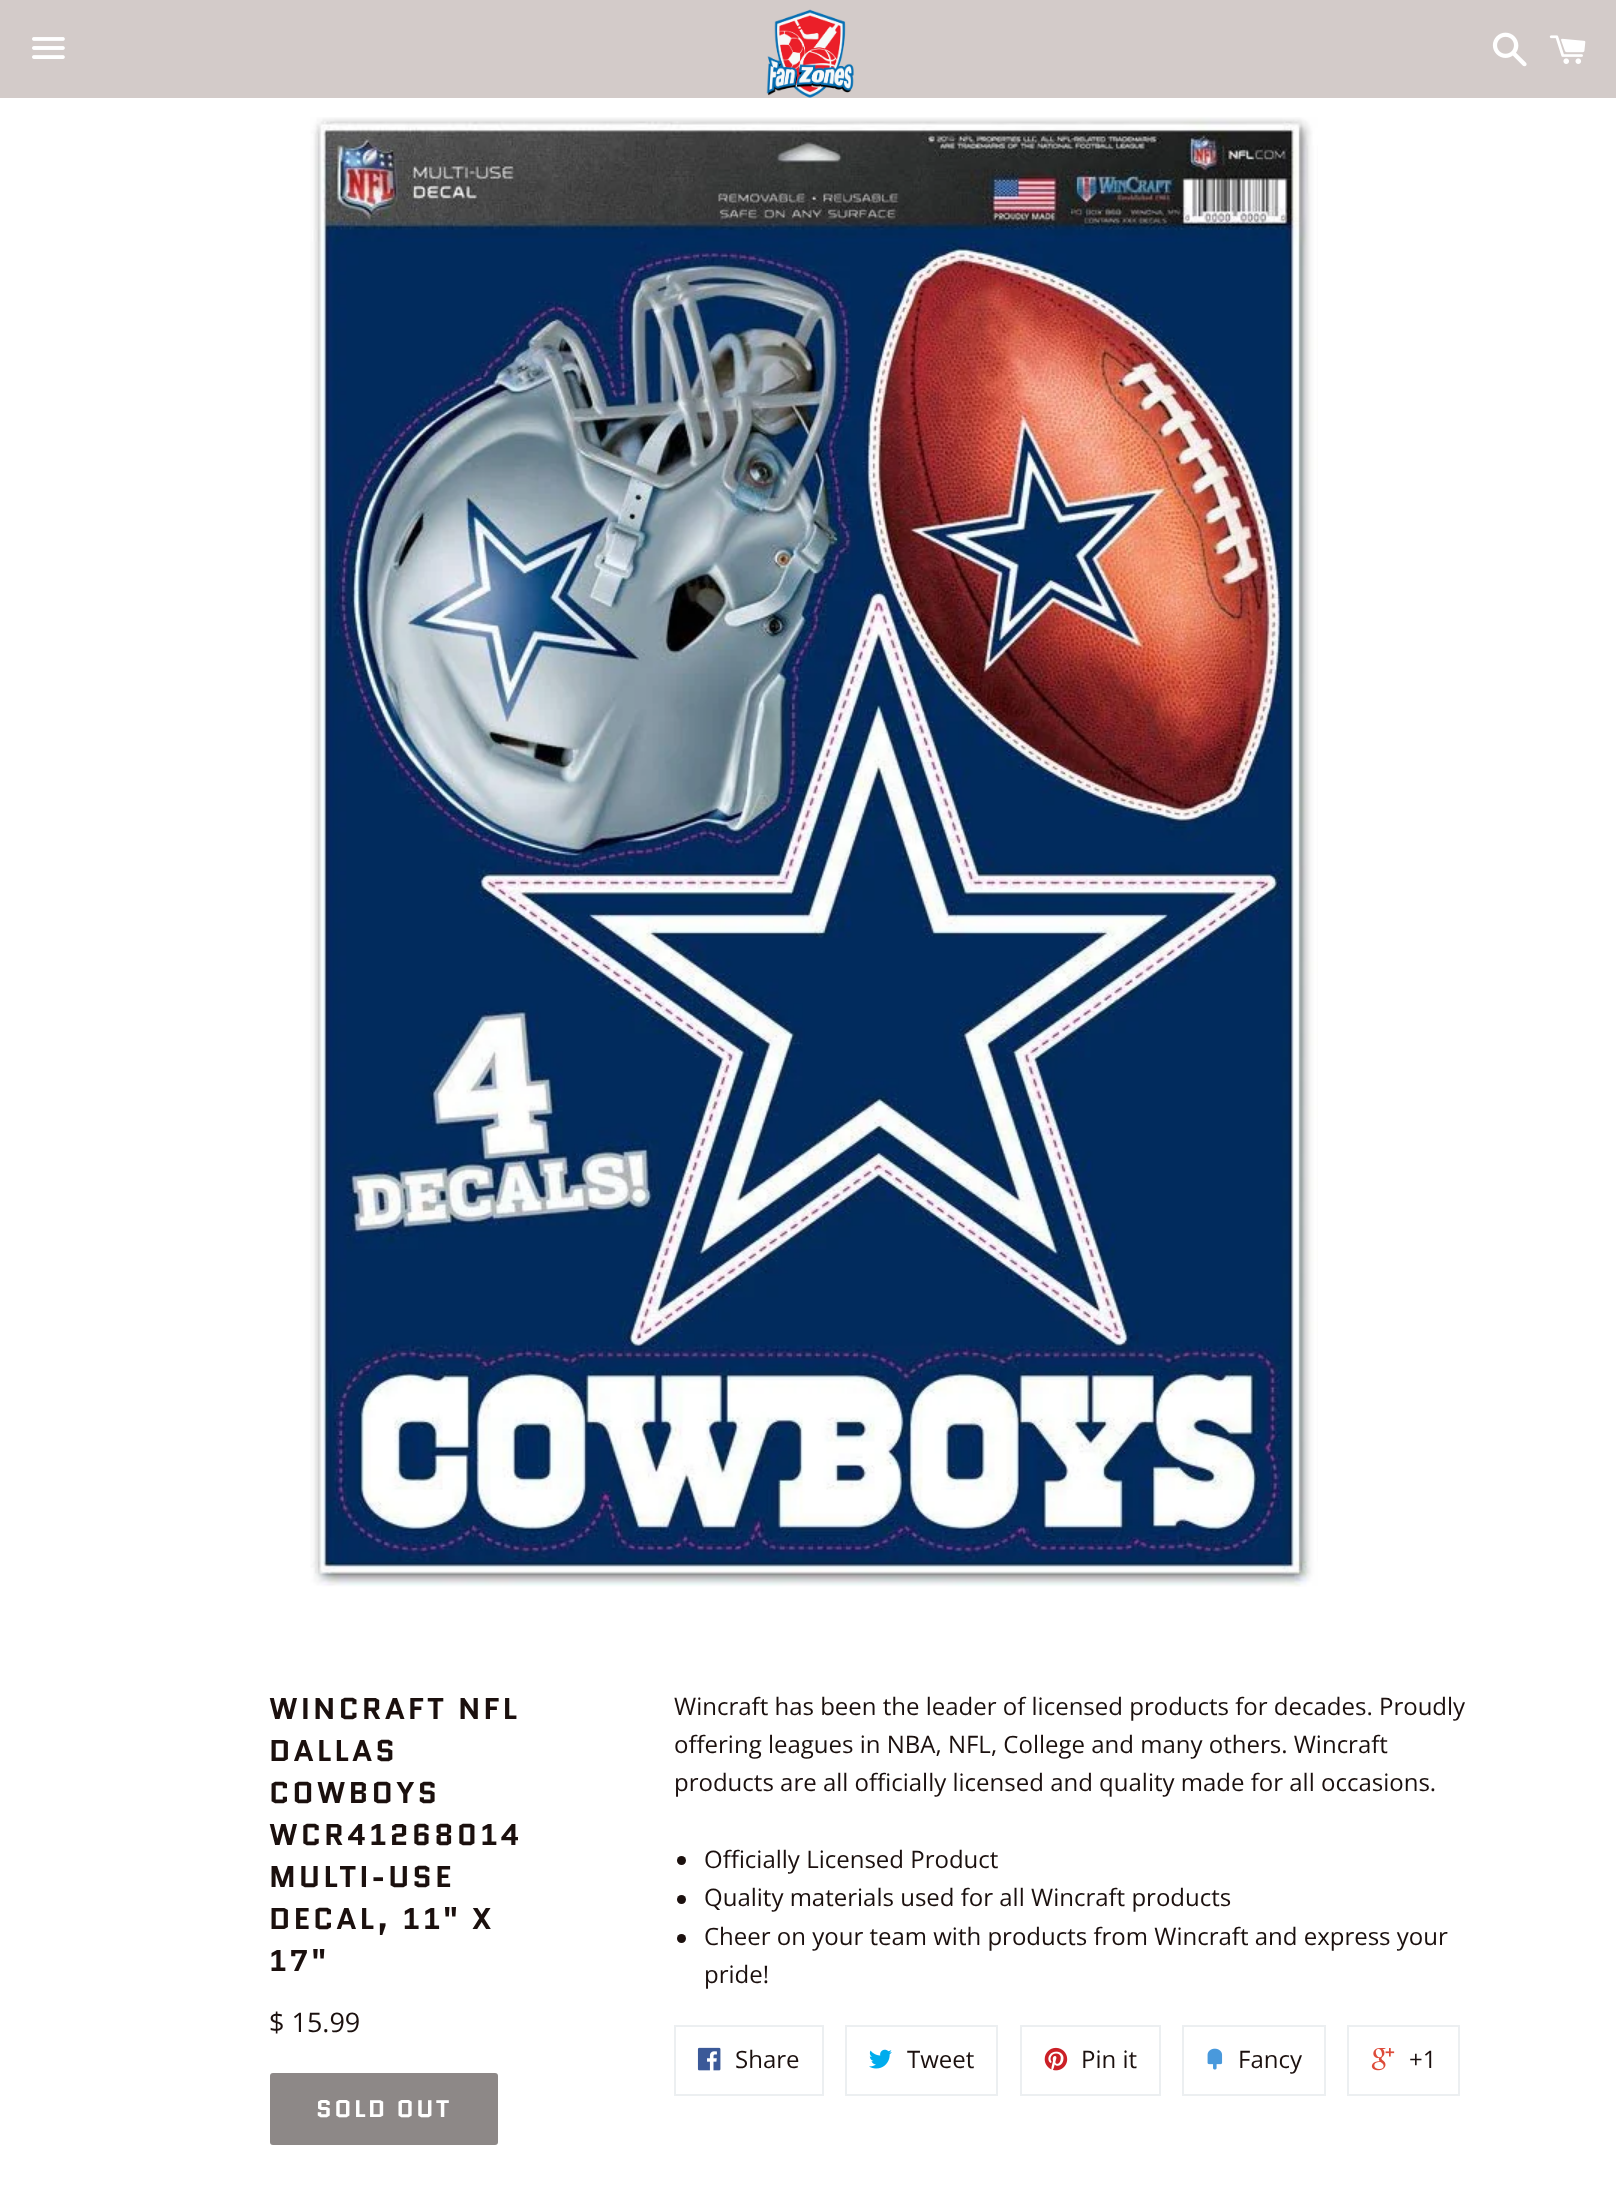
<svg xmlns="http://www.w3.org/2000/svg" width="1616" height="2199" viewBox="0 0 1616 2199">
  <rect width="100%" height="100%" fill="rgb(255,255,255)"/>
  <rect x="0" y="0" width="1616" height="98" fill="rgb(211,203,201)"/>
  <image x="32" y="37" width="33" height="22" href="pic1.png"/>
  <image x="766" y="9" width="88" height="89" href="pic2.png"/>
  <image x="1492" y="32" width="35" height="35" href="pic3.png"/>
  <image x="1549" y="35" width="37" height="29" href="pic4.png"/>
  <image x="310" y="117" width="1008" height="1470" href="pic5.png"/>
  <g font-family="Quantico" font-size="30" font-weight="bold" letter-spacing="3" fill="rgb(27,16,14)">
    <text>
      <tspan x="269" y="1719">WINCRAFT NFL</tspan>
      <tspan x="269" y="1761">DALLAS</tspan>
      <tspan x="269" y="1803">COWBOYS</tspan>
      <tspan x="269" y="1845">WCR41268014</tspan>
      <tspan x="269" y="1887">MULTI-USE</tspan>
      <tspan x="269" y="1929">DECAL, 11" X</tspan>
      <tspan x="269" y="1971">17"</tspan>
    </text>
  </g>
  <text x="269" y="2032" font-family="Open Sans" font-size="27" fill="rgb(27,16,14)">$ 15.99</text>
  <rect x="270" y="2073" width="228" height="72" rx="3" fill="rgb(141,136,135)"/>
  <text x="316" y="2117" font-family="Quantico" font-size="24" font-weight="bold" letter-spacing="2.5" fill="rgb(255,255,255)">SOLD OUT</text>
  <g font-family="Open Sans" font-size="24" fill="rgb(27,16,14)">
    <text>
      <tspan x="674" y="1715">Wincraft has been the leader of licensed products for decades. Proudly</tspan>
      <tspan x="674" y="1753">offering leagues in NBA, NFL, College and many others. Wincraft</tspan>
      <tspan x="674" y="1791">products are all officially licensed and quality made for all occasions.</tspan>
    </text>
  </g>
  <circle cx="681.5" cy="1860.5" r="4.5" fill="rgb(27,16,14)"/>
  <text x="704" y="1868" font-family="Open Sans" font-size="24" fill="rgb(27,16,14)">Officially Licensed Product</text>
  <circle cx="681.5" cy="1899.5" r="4.5" fill="rgb(27,16,14)"/>
  <text x="704" y="1906" font-family="Open Sans" font-size="24" fill="rgb(27,16,14)">Quality materials used for all Wincraft products</text>
  <circle cx="681.5" cy="1938.5" r="4.5" fill="rgb(27,16,14)"/>
  <g font-family="Open Sans" font-size="24" fill="rgb(27,16,14)">
    <text>
      <tspan x="704" y="1945">Cheer on your team with products from Wincraft and express your</tspan>
      <tspan x="704" y="1983">pride!</tspan>
    </text>
  </g>
  <rect x="675" y="2026" width="148" height="69" fill="none" stroke="rgb(236,239,241)" stroke-width="2"/>
  <image x="697" y="2047" width="24" height="24" href="pic6.png"/>
  <text x="735" y="2068" font-family="Open Sans" font-size="24" fill="rgb(27,16,14)">Share</text>
  <rect x="846" y="2026" width="151" height="69" fill="none" stroke="rgb(236,239,241)" stroke-width="2"/>
  <image x="869" y="2049" width="23" height="20" href="pic7.png"/>
  <text x="907" y="2068" font-family="Open Sans" font-size="24" fill="rgb(27,16,14)">Tweet</text>
  <rect x="1021" y="2026" width="139" height="69" fill="none" stroke="rgb(236,239,241)" stroke-width="2"/>
  <image x="1044" y="2047" width="24" height="24" href="pic8.png"/>
  <text x="1081" y="2068" font-family="Open Sans" font-size="24" fill="rgb(27,16,14)">Pin it</text>
  <rect x="1183" y="2026" width="142" height="69" fill="none" stroke="rgb(236,239,241)" stroke-width="2"/>
  <image x="1207" y="2048" width="16" height="22" href="pic9.png"/>
  <text x="1238" y="2068" font-family="Open Sans" font-size="24" fill="rgb(27,16,14)">Fancy</text>
  <rect x="1348" y="2026" width="111" height="69" fill="none" stroke="rgb(236,239,241)" stroke-width="2"/>
  <image x="1371" y="2048" width="24" height="23" href="pic10.png"/>
  <text x="1409" y="2068" font-family="Open Sans" font-size="24" fill="rgb(27,16,14)">+1</text>
</svg>
